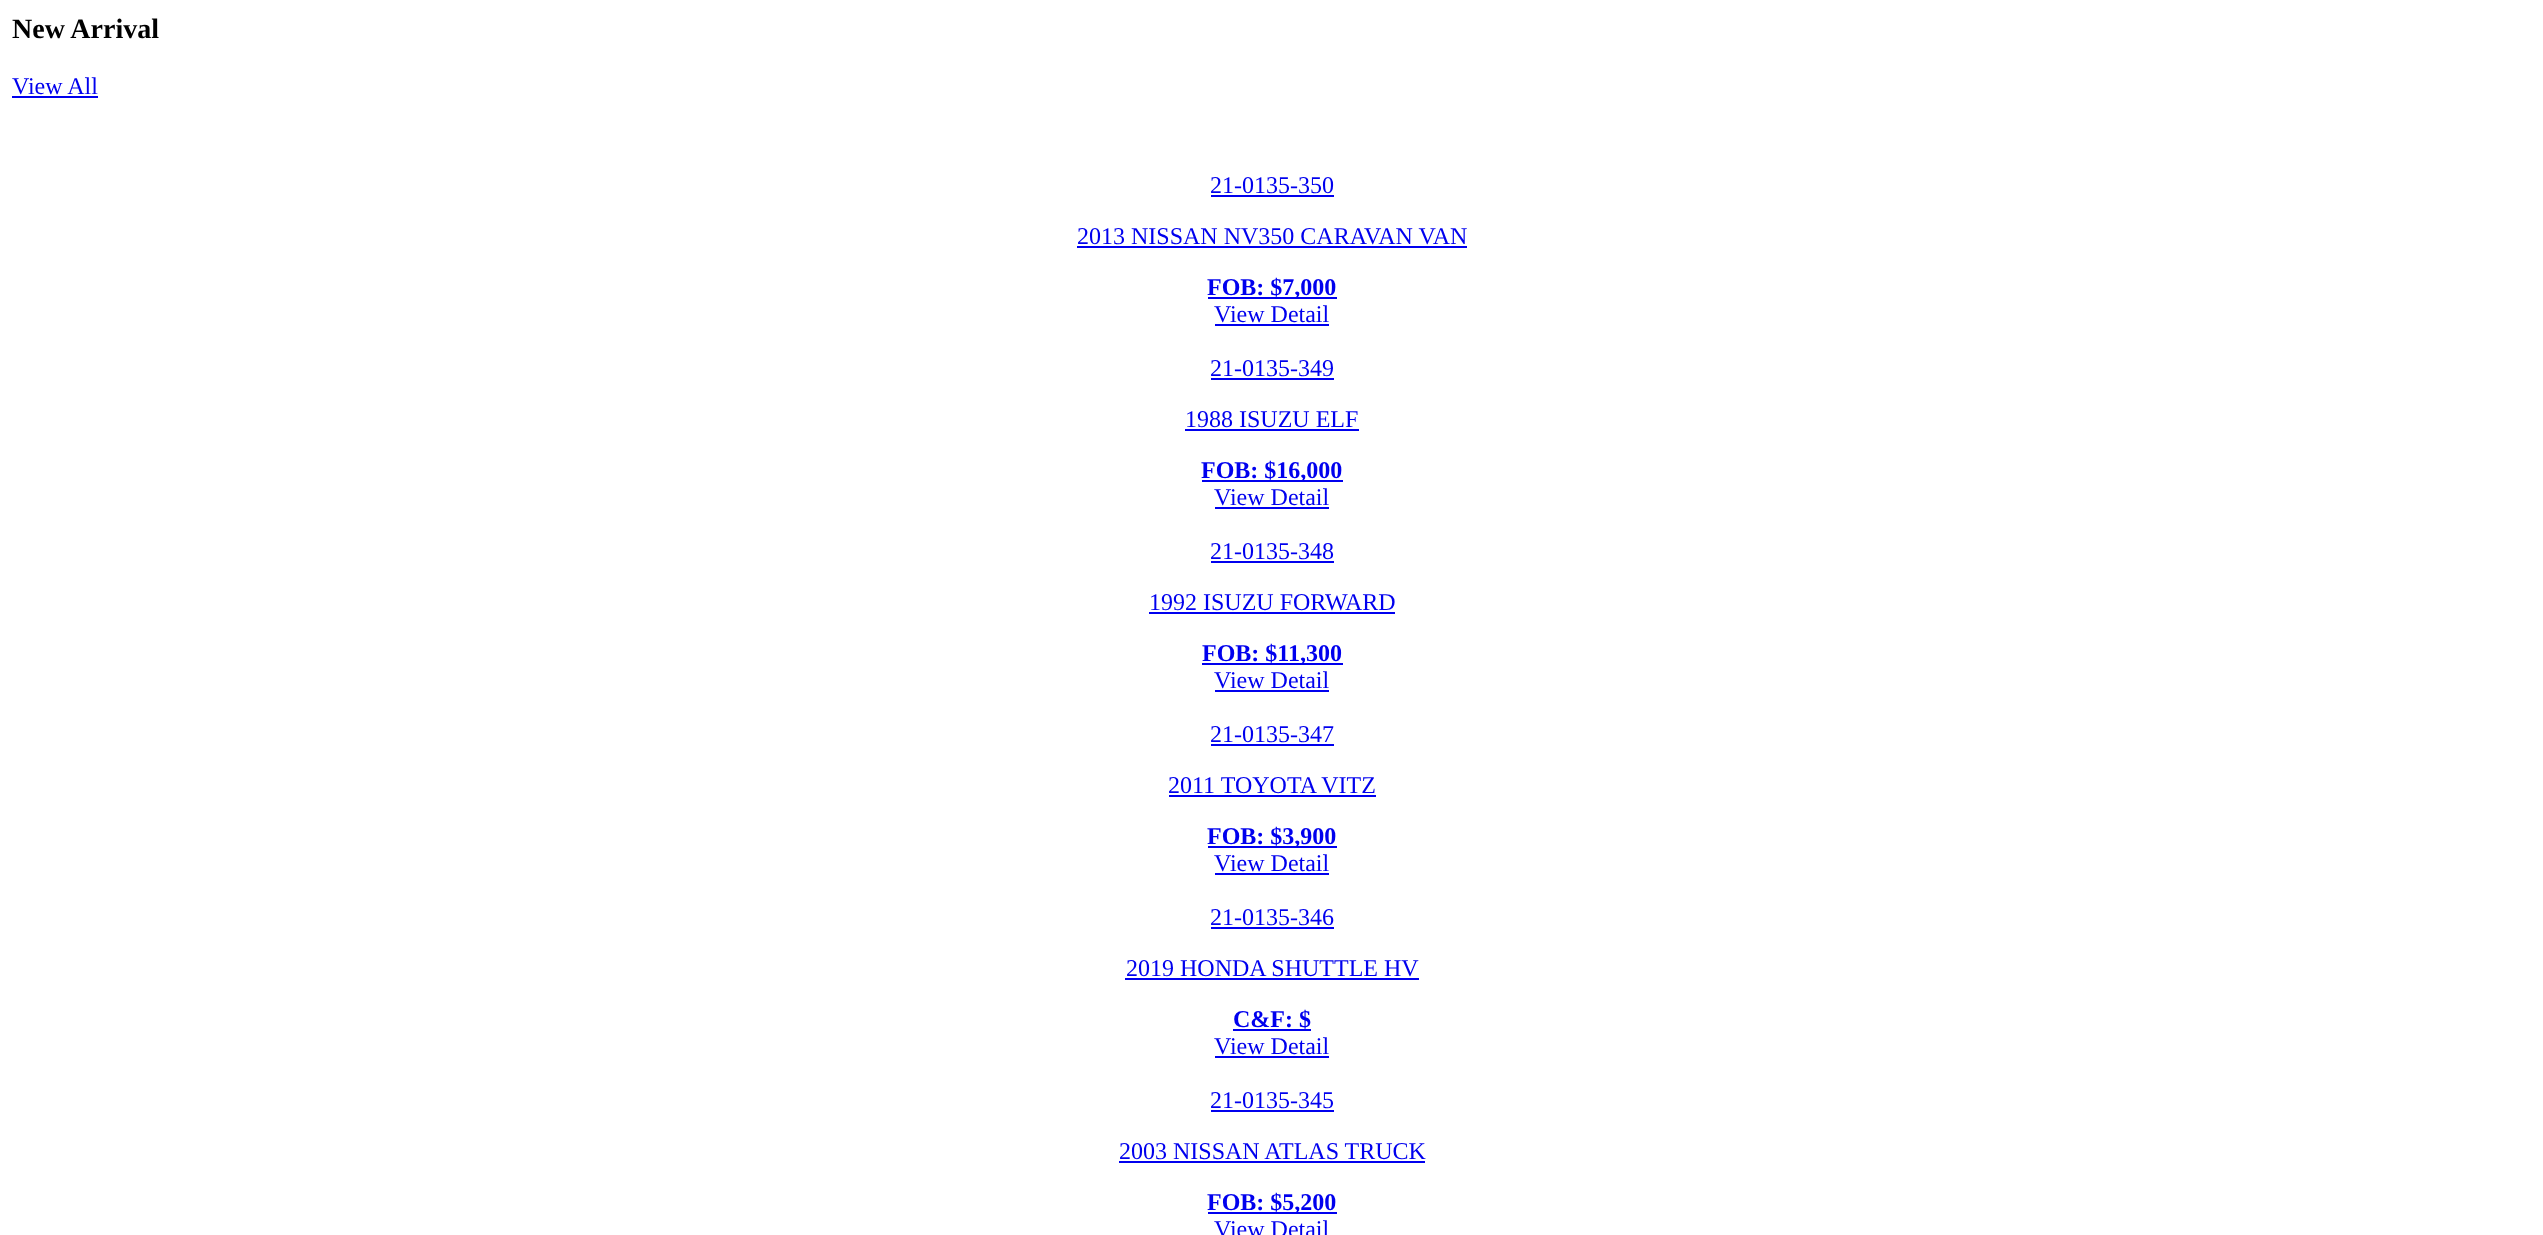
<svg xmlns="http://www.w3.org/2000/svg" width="2543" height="1235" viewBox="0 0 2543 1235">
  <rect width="100%" height="100%" fill="rgb(255,255,255)"/>
  <text x="12" y="38" font-family="Liberation Serif" font-size="28" font-weight="bold" fill="rgb(0,0,0)">New Arrival</text>
  <text x="12" y="94" font-family="Liberation Serif" font-size="24" fill="rgb(0,0,238)">View All</text>
  <rect x="12" y="96" width="86" height="2" fill="rgb(0,0,238)"/>
  <text x="1210" y="193" font-family="Liberation Serif" font-size="24" fill="rgb(0,0,238)">21-0135-350</text>
  <rect x="1211" y="195" width="123" height="2" fill="rgb(0,0,238)"/>
  <text x="1077" y="244" font-family="Liberation Serif" font-size="24" fill="rgb(0,0,238)">2013 NISSAN NV350 CARAVAN VAN</text>
  <rect x="1077" y="246" width="390" height="2" fill="rgb(0,0,238)"/>
  <rect x="1208" y="297" width="129" height="2" fill="rgb(0,0,238)"/>
  <text x="1207" y="295" font-family="Liberation Serif" font-size="24" font-weight="bold" fill="rgb(0,0,238)">FOB: $7,000</text>
  <text x="1214" y="322" font-family="Liberation Serif" font-size="24" fill="rgb(0,0,238)">View Detail</text>
  <rect x="1215" y="324" width="114" height="2" fill="rgb(0,0,238)"/>
  <text x="1210" y="376" font-family="Liberation Serif" font-size="24" fill="rgb(0,0,238)">21-0135-349</text>
  <rect x="1211" y="378" width="123" height="2" fill="rgb(0,0,238)"/>
  <text x="1185" y="427" font-family="Liberation Serif" font-size="24" fill="rgb(0,0,238)">1988 ISUZU ELF</text>
  <rect x="1185" y="429" width="174" height="2" fill="rgb(0,0,238)"/>
  <rect x="1202" y="480" width="141" height="2" fill="rgb(0,0,238)"/>
  <text x="1201" y="478" font-family="Liberation Serif" font-size="24" font-weight="bold" fill="rgb(0,0,238)">FOB: $16,000</text>
  <text x="1214" y="505" font-family="Liberation Serif" font-size="24" fill="rgb(0,0,238)">View Detail</text>
  <rect x="1215" y="507" width="114" height="2" fill="rgb(0,0,238)"/>
  <text x="1210" y="559" font-family="Liberation Serif" font-size="24" fill="rgb(0,0,238)">21-0135-348</text>
  <rect x="1211" y="561" width="123" height="2" fill="rgb(0,0,238)"/>
  <text x="1149" y="610" font-family="Liberation Serif" font-size="24" fill="rgb(0,0,238)">1992 ISUZU FORWARD</text>
  <rect x="1149" y="612" width="246" height="2" fill="rgb(0,0,238)"/>
  <rect x="1202" y="663" width="141" height="2" fill="rgb(0,0,238)"/>
  <text x="1202" y="661" font-family="Liberation Serif" font-size="24" font-weight="bold" fill="rgb(0,0,238)">FOB: $11,300</text>
  <text x="1214" y="688" font-family="Liberation Serif" font-size="24" fill="rgb(0,0,238)">View Detail</text>
  <rect x="1215" y="690" width="114" height="2" fill="rgb(0,0,238)"/>
  <text x="1210" y="742" font-family="Liberation Serif" font-size="24" fill="rgb(0,0,238)">21-0135-347</text>
  <rect x="1211" y="744" width="123" height="2" fill="rgb(0,0,238)"/>
  <text x="1168" y="793" font-family="Liberation Serif" font-size="24" fill="rgb(0,0,238)">2011 TOYOTA VITZ</text>
  <rect x="1169" y="795" width="207" height="2" fill="rgb(0,0,238)"/>
  <rect x="1208" y="846" width="129" height="2" fill="rgb(0,0,238)"/>
  <text x="1207" y="844" font-family="Liberation Serif" font-size="24" font-weight="bold" fill="rgb(0,0,238)">FOB: $3,900</text>
  <text x="1214" y="871" font-family="Liberation Serif" font-size="24" fill="rgb(0,0,238)">View Detail</text>
  <rect x="1215" y="873" width="114" height="2" fill="rgb(0,0,238)"/>
  <text x="1210" y="925" font-family="Liberation Serif" font-size="24" fill="rgb(0,0,238)">21-0135-346</text>
  <rect x="1211" y="927" width="123" height="2" fill="rgb(0,0,238)"/>
  <text x="1126" y="976" font-family="Liberation Serif" font-size="24" fill="rgb(0,0,238)">2019 HONDA SHUTTLE HV</text>
  <rect x="1125" y="978" width="294" height="2" fill="rgb(0,0,238)"/>
  <text x="1233" y="1027" font-family="Liberation Serif" font-size="24" font-weight="bold" fill="rgb(0,0,238)">C&amp;F: $</text>
  <rect x="1233" y="1029" width="78" height="2" fill="rgb(0,0,238)"/>
  <text x="1214" y="1054" font-family="Liberation Serif" font-size="24" fill="rgb(0,0,238)">View Detail</text>
  <rect x="1215" y="1056" width="114" height="2" fill="rgb(0,0,238)"/>
  <text x="1210" y="1108" font-family="Liberation Serif" font-size="24" fill="rgb(0,0,238)">21-0135-345</text>
  <rect x="1211" y="1110" width="123" height="2" fill="rgb(0,0,238)"/>
  <text x="1119" y="1159" font-family="Liberation Serif" font-size="24" fill="rgb(0,0,238)">2003 NISSAN ATLAS TRUCK</text>
  <rect x="1119" y="1161" width="306" height="2" fill="rgb(0,0,238)"/>
  <rect x="1208" y="1212" width="129" height="2" fill="rgb(0,0,238)"/>
  <text x="1207" y="1210" font-family="Liberation Serif" font-size="24" font-weight="bold" fill="rgb(0,0,238)">FOB: $5,200</text>
  <text x="1214" y="1237" font-family="Liberation Serif" font-size="24" fill="rgb(0,0,238)">View Detail</text>
</svg>
